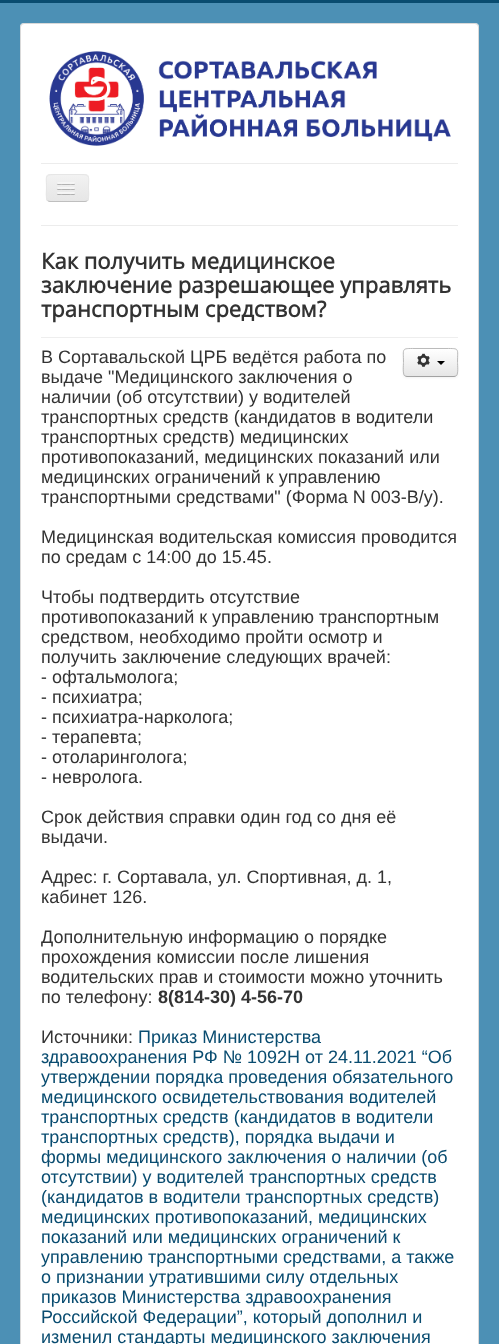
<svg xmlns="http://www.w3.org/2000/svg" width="499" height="1344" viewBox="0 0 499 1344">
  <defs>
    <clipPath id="clip1"><rect x="46" y="174" width="43" height="28" rx="4"/></clipPath>
    <linearGradient id="g1" gradientUnits="userSpaceOnUse" x1="68" y1="175" x2="68" y2="201"><stop offset="0" stop-color="rgb(242,242,242)"/><stop offset="1" stop-color="rgb(230,230,230)"/></linearGradient>
    <clipPath id="clip2"><rect x="403" y="348" width="55" height="29" rx="4"/></clipPath>
    <linearGradient id="g2" gradientUnits="userSpaceOnUse" x1="431" y1="349" x2="431" y2="376"><stop offset="0" stop-color="rgb(255,255,255)"/><stop offset="1" stop-color="rgb(230,230,230)"/></linearGradient>
  </defs>
  <rect width="100%" height="100%" fill="rgb(76,144,181)"/>
  <rect x="0" y="0" width="499" height="3" fill="rgb(9,76,112)"/>
  <rect x="20" y="23" width="459" height="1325" rx="4" fill="rgb(255,255,255)"/>
  <rect x="20.5" y="23.5" width="458" height="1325" rx="3.5" fill="none" stroke="rgba(0,0,0,0.15)"/>
  <image x="49" y="51" width="402" height="95" href="pic1.png"/>
  <rect x="41" y="163" width="417" height="1" fill="rgb(236,236,236)"/>
  <rect x="41" y="225" width="417" height="1" fill="rgb(236,236,236)"/>
  <rect x="46" y="174" width="43" height="28" rx="4" fill="rgb(237,237,237)"/>
  <g clip-path="url(#clip1)">
    <rect x="46" y="175" width="43" height="26" fill="url(#g1)"/>
  </g>
  <path d="M87.5 200.5C87 201 86 201.5 85 201.5H50C49 201.5 48 201 47.5 200.5" fill="none" stroke="rgb(191,191,191)"/>
  <path d="M47.5 200.5C45.5 198 46.5 190.5 46.5 188C46.5 176 44 174.5 56 174.5H79C91 174.5 88.5 176 88.5 188C88.5 190.5 89.5 198 87.5 200.5" fill="none" stroke="rgb(230,230,230)"/>
  <path d="M57 183.5C56 185.5 60.5 185 60.5 185H71.5C71.5 185 76 185.5 75 183.5C74 184.5 67.5 184 66 184C64.5 184 58 184.5 57 183.5Z" fill="rgb(179,179,179)"/>
  <rect x="57" y="182" width="18" height="2" rx="1" fill="rgb(245,245,245)"/>
  <path d="M57 188.5C56 190.5 60.5 190 60.5 190H71.5C71.5 190 76 190.5 75 188.5C74 189.5 67.5 189 66 189C64.5 189 58 189.5 57 188.5Z" fill="rgb(176,176,176)"/>
  <rect x="57" y="187" width="18" height="2" rx="1" fill="rgb(245,245,245)"/>
  <path d="M57 193.5C56 195.5 60.5 195 60.5 195H71.5C71.5 195 76 195.5 75 193.5C74 194.5 67.5 194 66 194C64.5 194 58 194.5 57 193.5Z" fill="rgb(175,175,175)"/>
  <rect x="57" y="192" width="18" height="2" rx="1" fill="rgb(245,245,245)"/>
  <rect x="41" y="337" width="417" height="1" fill="rgb(238,238,238)"/>
  <g font-family="Open Sans" font-size="22" font-weight="bold" fill="rgb(51,51,51)">
    <text>
      <tspan x="41" y="269">Как получить медицинское</tspan>
      <tspan x="41" y="293">заключение разрешающее управлять</tspan>
      <tspan x="41" y="317">транспортным средством?</tspan>
    </text>
  </g>
  <rect x="403" y="349" width="55" height="29" rx="4" fill="rgba(0,0,0,0.05)" filter="blur(1px)"/>
  <rect x="403" y="348" width="55" height="29" rx="4" fill="rgb(245,245,245)"/>
  <g clip-path="url(#clip2)">
    <rect x="403" y="349" width="55" height="27" fill="url(#g2)"/>
  </g>
  <path d="M407 350H454C456 350 457 351 457 353C457 347 451 349 446 349H415C410 349 404 347 404 353C404 351 405 350 407 350Z" fill="rgb(255,255,255)"/>
  <path d="M456.5 375.5C456 376 455 376.5 454 376.5H407C406 376.5 405 376 404.5 375.5" fill="none" stroke="rgb(162,162,162)"/>
  <path d="M404.5 375.5C402.5 373.5 403.5 365 403.5 362.5C403.5 348 401 348.5 415 348.5H446C460 348.5 457.5 348 457.5 362.5C457.5 365 458.5 373.5 456.5 375.5" fill="none" stroke="rgb(187,187,187)"/>
  <image x="417" y="353" width="13" height="14" href="pic2.png"/>
  <path d="M437 361H445L441 365Z" fill="rgb(0,0,0)"/>
  <g font-family="Liberation Sans" font-size="18" fill="rgb(51,51,51)">
    <text>
      <tspan x="41" y="363">В Сортавальской ЦРБ ведётся работа по</tspan>
      <tspan x="41" y="383">выдаче "Медицинского заключения о</tspan>
      <tspan x="41" y="403">наличии (об отсутствии) у водителей</tspan>
      <tspan x="41" y="423">транспортных средств (кандидатов в водители</tspan>
      <tspan x="41" y="443">транспортных средств) медицинских</tspan>
      <tspan x="41" y="463">противопоказаний, медицинских показаний или</tspan>
      <tspan x="41" y="483">медицинских ограничений к управлению</tspan>
      <tspan x="41" y="503">транспортными средствами" (Форма N 003-В/у).</tspan>
    </text>
    <text>
      <tspan x="41" y="543">Медицинская водительская комиссия проводится</tspan>
      <tspan x="41" y="563">по средам с 14:00 до 15.45.</tspan>
    </text>
    <text>
      <tspan x="41" y="603">Чтобы подтвердить отсутствие</tspan>
      <tspan x="41" y="623">противопоказаний к управлению транспортным</tspan>
      <tspan x="41" y="643">средством, необходимо пройти осмотр и</tspan>
      <tspan x="41" y="663">получить заключение следующих врачей:</tspan>
    </text>
  </g>
  <text x="41" y="683" font-family="Noto Sans" font-size="18" fill="rgb(51,51,51)">⁃</text>
  <text x="52" y="683" font-family="Liberation Sans" font-size="18" fill="rgb(51,51,51)">офтальмолога;</text>
  <text x="41" y="703" font-family="Noto Sans" font-size="18" fill="rgb(51,51,51)">⁃</text>
  <g font-family="Liberation Sans" font-size="18" fill="rgb(51,51,51)">
    <text x="52" y="703">психиатра;</text>
    <text x="41" y="723">- психиатра-нарколога;</text>
  </g>
  <text x="41" y="743" font-family="Noto Sans" font-size="18" fill="rgb(51,51,51)">⁃</text>
  <g font-family="Liberation Sans" font-size="18" fill="rgb(51,51,51)">
    <text x="52" y="743">терапевта;</text>
    <text>
      <tspan x="41" y="763">- отоларинголога;</tspan>
      <tspan x="41" y="783">- невролога.</tspan>
    </text>
    <text>
      <tspan x="41" y="823">Срок действия справки один год со дня её</tspan>
      <tspan x="41" y="843">выдачи.</tspan>
    </text>
    <text>
      <tspan x="41" y="883">Адрес: г. Сортавала, ул. Спортивная, д. 1,</tspan>
      <tspan x="41" y="903">кабинет 126.</tspan>
    </text>
    <text>
      <tspan x="41" y="943">Дополнительную информацию о порядке</tspan>
      <tspan x="41" y="963">прохождения комиссии после лишения</tspan>
      <tspan x="41" y="983">водительских прав и стоимости можно уточнить</tspan>
      <tspan x="41" y="1003">по телефону:</tspan>
    </text>
  </g>
  <text x="158" y="1003" font-family="Liberation Sans" font-size="18" font-weight="bold" fill="rgb(51,51,51)">8(814-30) 4-56-70</text>
  <text x="41" y="1043" font-family="Liberation Sans" font-size="18" fill="rgb(51,51,51)">Источники:</text>
  <g font-family="Liberation Sans" font-size="18" fill="rgb(9,76,112)">
    <text x="138" y="1043">Приказ Министерства</text>
    <text>
      <tspan x="41" y="1063">здравоохранения РФ № 1092Н от 24.11.2021 “Об</tspan>
      <tspan x="41" y="1083">утверждении порядка проведения обязательного</tspan>
      <tspan x="41" y="1103">медицинского освидетельствования водителей</tspan>
      <tspan x="41" y="1123">транспортных средств (кандидатов в водители</tspan>
      <tspan x="41" y="1143">транспортных средств), порядка выдачи и</tspan>
      <tspan x="41" y="1163">формы медицинского заключения о наличии (об</tspan>
      <tspan x="41" y="1183">отсутствии) у водителей транспортных средств</tspan>
      <tspan x="41" y="1203">(кандидатов в водители транспортных средств)</tspan>
      <tspan x="41" y="1223">медицинских противопоказаний, медицинских</tspan>
      <tspan x="41" y="1243">показаний или медицинских ограничений к</tspan>
      <tspan x="41" y="1263">управлению транспортными средствами, а также</tspan>
      <tspan x="41" y="1283">о признании утратившими силу отдельных</tspan>
      <tspan x="41" y="1303">приказов Министерства здравоохранения</tspan>
      <tspan x="41" y="1323">Российской Федерации”, который дополнил и</tspan>
      <tspan x="41" y="1343">изменил стандарты медицинского заключения</tspan>
    </text>
  </g>
</svg>
